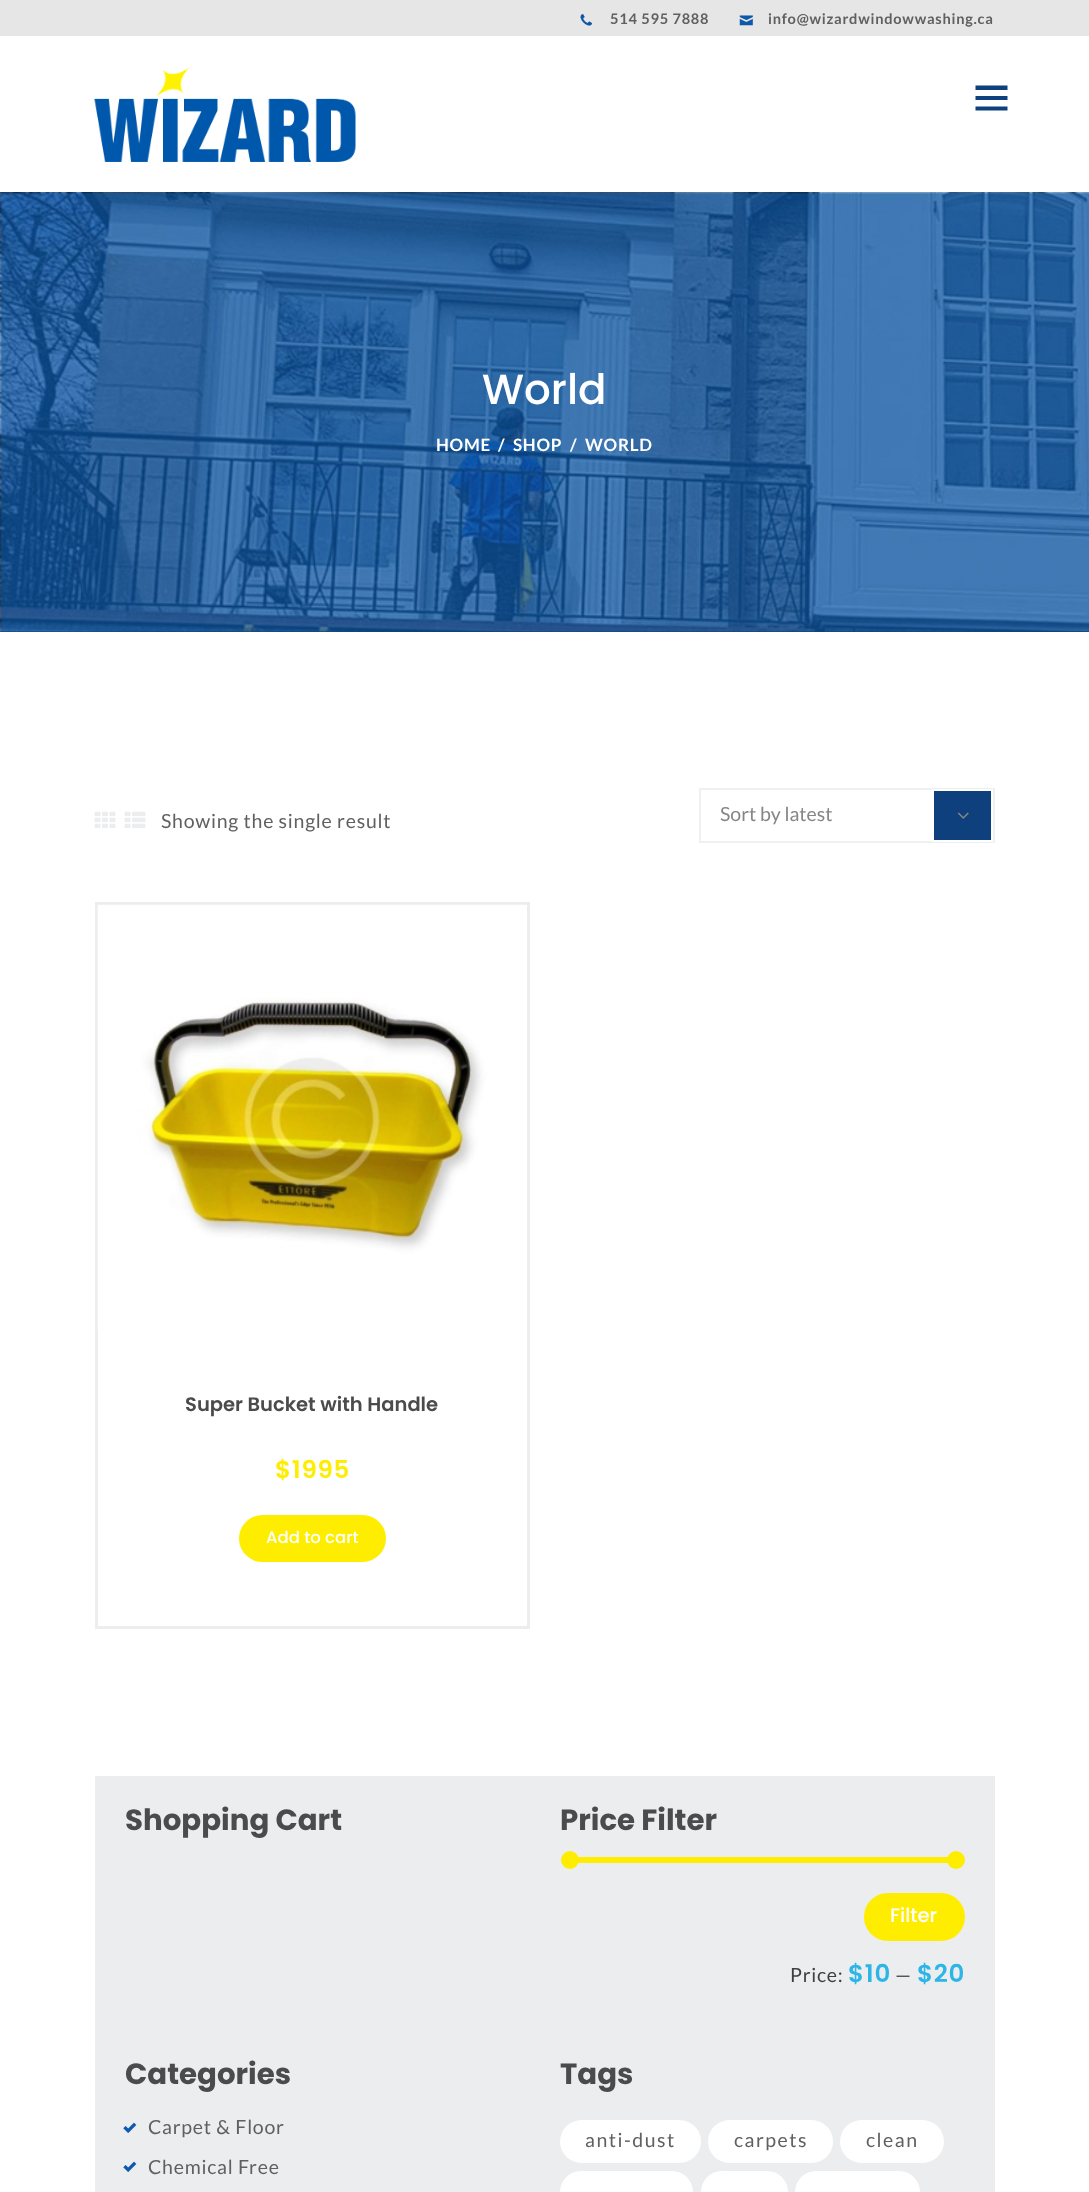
<svg xmlns="http://www.w3.org/2000/svg" width="1089" height="2192" viewBox="0 0 1089 2192">
  <rect width="100%" height="100%" fill="rgb(255,255,255)"/>
  <rect x="0" y="0" width="1089" height="36" fill="rgb(230,230,230)"/>
  <image x="580" y="14" width="12" height="12" href="pic1.png"/>
  <text x="610" y="24" font-family="Lato" font-size="14.6" font-weight="bold" letter-spacing="0.75" fill="rgb(96,96,96)">514 595 7888</text>
  <image x="739" y="15" width="14" height="11" href="pic2.png"/>
  <text x="768" y="24" font-family="Lato" font-size="14.6" font-weight="bold" letter-spacing="0.75" fill="rgb(96,96,96)">info@wizardwindowwashing.ca</text>
  <image x="94" y="66" width="262" height="96" href="pic3.png"/>
  <path d="M975.5 110.5H1007.5V106.5H975.5ZM975.5 100H1007.5V96H975.5ZM975.5 85.5V90H1007.5V85.5Z" fill="rgb(13,64,124)"/>
  <rect x="0" y="631" width="1089" height="1" fill="rgb(13,64,124)"/>
  <image x="0" y="192" width="1089" height="440" href="pic4.png"/>
  <text x="482" y="404" font-family="Poppins" font-size="42" font-weight="500" fill="rgb(255,255,255)">World</text>
  <g font-family="Lato" font-size="17" font-weight="bold" letter-spacing="0.75" fill="rgb(255,255,255)">
    <text x="436" y="451">HOME</text>
    <text x="498" y="451">/</text>
    <text x="513" y="451">SHOP</text>
    <text x="570" y="451">/</text>
    <text x="585" y="451">WORLD</text>
  </g>
  <image x="94" y="811" width="22" height="17" href="pic5.png"/>
  <image x="124" y="811" width="22" height="17" href="pic6.png"/>
  <text x="161" y="828" font-family="Lato" font-size="19.5" letter-spacing="0.75" fill="rgb(96,96,96)">Showing the single result</text>
  <rect x="700" y="789" width="294" height="53" fill="none" stroke="rgb(238,241,244)" stroke-width="2"/>
  <text x="720" y="821" font-family="Lato" font-size="19.5" fill="rgb(134,134,134)">Sort by latest</text>
  <rect x="933" y="790" width="59" height="51" fill="rgb(13,64,124)" stroke="rgb(255,255,255)" stroke-width="2"/>
  <image x="957" y="812" width="12" height="7" href="pic7.png"/>
  <rect x="96.5" y="903.5" width="432" height="724" fill="none" stroke="rgb(236,237,239)" stroke-width="3"/>
  <image x="97" y="904" width="429" height="429" href="pic8.png"/>
  <text x="185" y="1411" font-family="Poppins" font-size="19.5" font-weight="600" fill="rgb(75,75,75)">Super Bucket with Handle</text>
  <text x="275" y="1478" font-family="Poppins" font-size="24.5" font-weight="600" letter-spacing="0.75" fill="rgb(255,237,0)">$1995</text>
  <rect x="239" y="1515" width="147" height="47" rx="23.5" fill="rgb(255,237,0)"/>
  <text x="266" y="1543" font-family="Poppins" font-size="16.5" font-weight="500" fill="rgb(255,255,255)">Add to cart</text>
  <rect x="95" y="1776" width="900" height="416" fill="rgb(236,237,239)"/>
  <g font-family="Poppins" font-size="29.25" font-weight="bold" fill="rgb(75,75,75)">
    <text x="125" y="1830">Shopping Cart</text>
    <text x="560" y="1830">Price Filter</text>
  </g>
  <rect x="570" y="1857" width="386" height="6" fill="rgb(255,237,0)"/>
  <circle cx="570" cy="1860" r="9" fill="rgb(255,237,0)"/>
  <circle cx="956" cy="1860" r="9" fill="rgb(255,237,0)"/>
  <rect x="865.5" y="1894.5" width="98" height="45" rx="22.5" fill="rgb(255,237,0)" stroke="rgb(255,237,0)" stroke-width="3"/>
  <text x="890" y="1922" font-family="Poppins" font-size="19.5" font-weight="500" fill="rgb(255,255,255)">Filter</text>
  <text x="790" y="1982" font-family="Lato" font-size="19.5" letter-spacing="0.75" fill="rgb(63,63,63)">Price:</text>
  <text x="848" y="1982" font-family="Poppins" font-size="24.5" font-weight="600" letter-spacing="0.75" fill="rgb(45,181,231)">$10</text>
  <text x="895" y="1982" font-family="Lato" font-size="19.5" letter-spacing="0.75" fill="rgb(63,63,63)">—</text>
  <text x="917" y="1982" font-family="Poppins" font-size="24.5" font-weight="600" letter-spacing="0.75" fill="rgb(45,181,231)">$20</text>
  <text x="125" y="2084" font-family="Poppins" font-size="29.25" font-weight="bold" fill="rgb(75,75,75)">Categories</text>
  <image x="123" y="2122" width="14" height="11" href="pic9.png"/>
  <text x="148" y="2134" font-family="Lato" font-size="19.5" letter-spacing="0.75" fill="rgb(96,96,96)">Carpet &amp; Floor</text>
  <image x="123" y="2161" width="14" height="11" href="pic9.png"/>
  <text x="148" y="2174" font-family="Lato" font-size="19.5" letter-spacing="0.75" fill="rgb(96,96,96)">Chemical Free</text>
  <text x="560" y="2084" font-family="Poppins" font-size="29.25" font-weight="bold" fill="rgb(75,75,75)">Tags</text>
  <rect x="560" y="2120" width="141" height="43" rx="21.5" fill="rgb(255,255,255)"/>
  <text x="585" y="2147" font-family="Lato" font-size="19.5" letter-spacing="1.5" fill="rgb(96,96,96)">anti-dust</text>
  <rect x="708" y="2120" width="125" height="43" rx="21.5" fill="rgb(255,255,255)"/>
  <text x="734" y="2147" font-family="Lato" font-size="19.5" letter-spacing="1.5" fill="rgb(96,96,96)">carpets</text>
  <rect x="840" y="2120" width="104" height="43" rx="21.5" fill="rgb(255,255,255)"/>
  <text x="866" y="2147" font-family="Lato" font-size="19.5" letter-spacing="1.5" fill="rgb(96,96,96)">clean</text>
  <rect x="560" y="2171" width="133" height="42" rx="21" fill="rgb(255,255,255)"/>
  <rect x="701" y="2171" width="87" height="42" rx="21" fill="rgb(255,255,255)"/>
  <rect x="795" y="2171" width="125" height="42" rx="21" fill="rgb(255,255,255)"/>
</svg>
